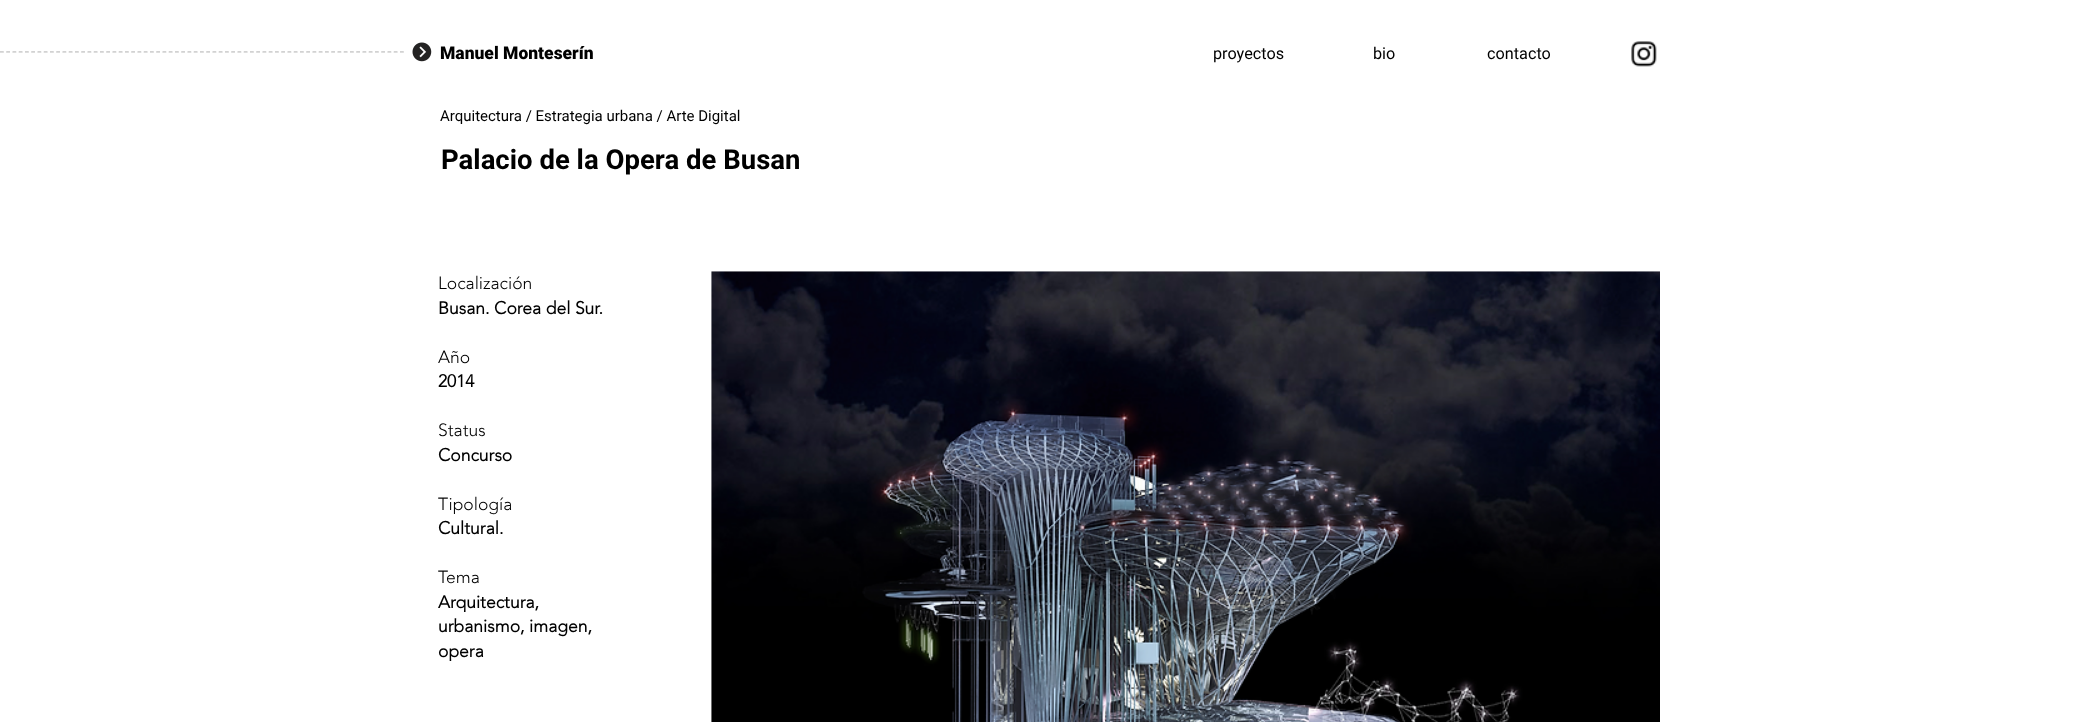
<svg xmlns="http://www.w3.org/2000/svg" width="2099" height="722" viewBox="0 0 2099 722">
  <rect width="100%" height="100%" fill="rgb(255,255,255)"/>
  <path d="M-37.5 52H404" fill="none" stroke="rgb(166,166,166)" stroke-width="1.2" stroke-dasharray="3.75 2.5"/>
  <path d="M-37.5 53H404" fill="none" stroke="rgba(255,255,255,0.5)" stroke-width="1.2" stroke-dasharray="3.75 2.5"/>
  <image x="412" y="42" width="20" height="20" href="pic1.png"/>
  <text x="440" y="59" font-family="Roboto" font-size="17.5" font-weight="900" fill="rgb(0,0,0)">Manuel Monteserín</text>
  <g font-family="Roboto" font-size="16.25" fill="rgb(0,0,0)">
    <text x="1213" y="59">proyectos</text>
    <text x="1373" y="59">bio</text>
    <text x="1487" y="59">contacto</text>
  </g>
  <image x="1631" y="41" width="26" height="26" href="pic2.png"/>
  <text x="440" y="121" font-family="Roboto" font-size="15" fill="rgb(0,0,0)">Arquitectura / Estrategia urbana / Arte Digital</text>
  <text x="441" y="169" font-family="Roboto" font-size="27.5" font-weight="bold" fill="rgb(0,0,0)">Palacio de la Opera de Busan</text>
  <text x="438" y="289" font-family="'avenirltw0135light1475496'" font-size="17.5" font-weight="300" fill="rgb(0,0,0)">Localización</text>
  <text x="438" y="314" font-family="'avenirltw0135light1475496'" font-size="17.5" font-weight="bold" fill="rgb(0,0,0)">Busan. Corea del Sur.</text>
  <text x="438" y="363" font-family="'avenirltw0135light1475496'" font-size="17.5" font-weight="300" fill="rgb(0,0,0)">Año</text>
  <text x="438" y="387" font-family="'avenirltw0135light1475496'" font-size="17.5" font-weight="bold" fill="rgb(0,0,0)">2014</text>
  <text x="438" y="436" font-family="'avenirltw0135light1475496'" font-size="17.5" font-weight="300" fill="rgb(0,0,0)">Status</text>
  <text x="438" y="461" font-family="'avenirltw0135light1475496'" font-size="17.5" font-weight="bold" fill="rgb(0,0,0)">Concurso</text>
  <text x="438" y="510" font-family="'avenirltw0135light1475496'" font-size="17.5" font-weight="300" fill="rgb(0,0,0)">Tipología</text>
  <text x="438" y="534" font-family="'avenirltw0135light1475496'" font-size="17.5" font-weight="bold" fill="rgb(0,0,0)">Cultural.</text>
  <text x="438" y="583" font-family="'avenirltw0135light1475496'" font-size="17.5" font-weight="300" fill="rgb(0,0,0)">Tema</text>
  <g font-family="'avenirltw0135light1475496'" font-size="17.5" font-weight="bold" fill="rgb(0,0,0)">
    <text>
      <tspan x="438" y="608">Arquitectura,</tspan>
      <tspan x="438" y="632">urbanismo, imagen,</tspan>
      <tspan x="438" y="657">opera</tspan>
    </text>
  </g>
  <image x="711" y="271" width="949" height="451" href="pic3.png"/>
</svg>
